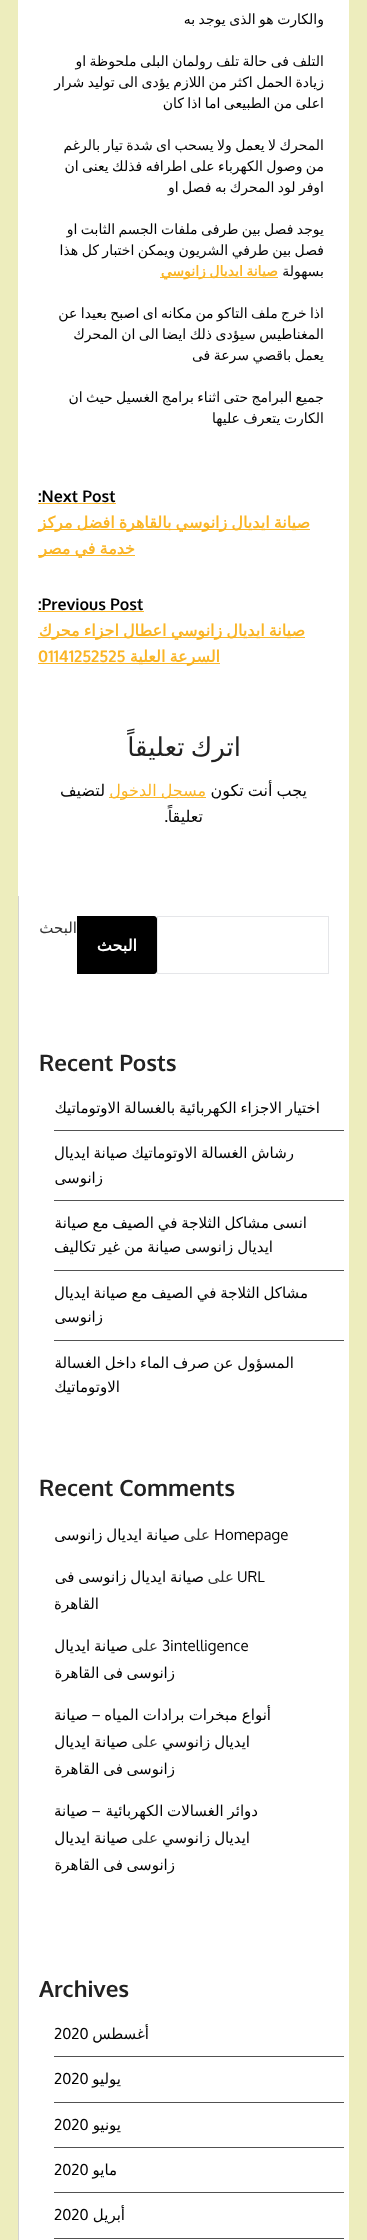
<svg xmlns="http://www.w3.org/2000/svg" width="367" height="2240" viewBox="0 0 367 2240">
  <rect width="100%" height="100%" fill="rgb(237,237,189)"/>
  <rect x="18" y="0" width="331" height="2240" fill="rgb(255,255,255)"/>
  <g font-family="DejaVu Sans" font-size="14" direction="rtl" fill="rgb(0,0,0)">
    <text x="324" y="24" word-spacing="-1">والكارت هو الذى يوجد به</text>
    <text>
      <tspan x="324" y="66" word-spacing="-1">التلف فى حالة تلف رولمان البلى ملحوظة او</tspan>
      <tspan x="324" y="87" word-spacing="-1">زيادة الحمل اكثر من اللازم يؤدى الى توليد شرار</tspan>
      <tspan x="324" y="108" word-spacing="-1">اعلى من الطبيعى اما اذا كان</tspan>
    </text>
    <text>
      <tspan x="324" y="150" word-spacing="-1">المحرك لا يعمل ولا يسحب اى شدة تيار بالرغم</tspan>
      <tspan x="324" y="171" word-spacing="-1">من وصول الكهرباء على اطرافه فذلك يعنى ان</tspan>
      <tspan x="324" y="192" word-spacing="-1">اوفر لود المحرك به فصل او</tspan>
    </text>
    <text>
      <tspan x="324" y="234" word-spacing="-1">يوجد فصل بين طرفى ملفات الجسم الثابت او</tspan>
      <tspan x="324" y="255" word-spacing="-1">فصل بين طرفي الشريون ويمكن اختبار كل هذا</tspan>
      <tspan x="324" y="276">بسهولة</tspan>
    </text>
  </g>
  <rect x="160" y="277" width="118" height="1" fill="rgb(250,181,38)"/>
  <text x="278" y="276" word-spacing="-1" font-family="DejaVu Sans" font-size="14" font-weight="bold" direction="rtl" fill="rgb(250,181,38)">صيانة ايديال زانوسي</text>
  <g font-family="DejaVu Sans" font-size="14" direction="rtl" fill="rgb(0,0,0)">
    <text>
      <tspan x="324" y="318" word-spacing="-1">اذا خرج ملف التاكو من مكانه اى اصبح بعيدا عن</tspan>
      <tspan x="324" y="339" word-spacing="-1">المغناطيس سيؤدى ذلك ايضا الى ان المحرك</tspan>
      <tspan x="324" y="360" word-spacing="-1">يعمل باقصي سرعة فى</tspan>
    </text>
    <text>
      <tspan x="324" y="402" word-spacing="-1">جميع البرامج حتى اثناء برامج الغسيل حيث ان</tspan>
      <tspan x="324" y="423" word-spacing="-1">الكارت يتعرف عليها</tspan>
    </text>
  </g>
  <text x="38" y="502" font-family="Oxygen" font-size="16" font-weight="bold" fill="rgb(0,0,0)">:Next Post</text>
  <rect x="38" y="503" width="78" height="1" fill="rgb(250,181,38)"/>
  <rect x="38" y="529" width="272" height="1" fill="rgb(250,181,38)"/>
  <text x="310" y="528" word-spacing="-1" font-family="DejaVu Sans" font-size="16" font-weight="bold" direction="rtl" fill="rgb(250,181,38)">صيانة ايديال زانوسي بالقاهرة افضل مركز</text>
  <rect x="38" y="555" width="97" height="1" fill="rgb(250,181,38)"/>
  <text x="135" y="554" word-spacing="-1" font-family="DejaVu Sans" font-size="16" font-weight="bold" direction="rtl" fill="rgb(250,181,38)">خدمة في مصر</text>
  <text x="38" y="610" font-family="Oxygen" font-size="16" font-weight="bold" fill="rgb(0,0,0)">:Previous Post</text>
  <rect x="38" y="611" width="106" height="1" fill="rgb(250,181,38)"/>
  <rect x="38" y="637" width="267" height="1" fill="rgb(250,181,38)"/>
  <text x="305" y="636" word-spacing="-1" font-family="DejaVu Sans" font-size="16" font-weight="bold" direction="rtl" fill="rgb(250,181,38)">صيانة ايديال زانوسي اعطال اجزاء محرك</text>
  <rect x="38" y="663" width="182" height="1" fill="rgb(250,181,38)"/>
  <text x="220" y="662" word-spacing="-1" font-family="DejaVu Sans" font-size="16" font-weight="bold" direction="rtl" fill="rgb(250,181,38)">السرعة العلية</text>
  <text x="38" y="662" font-family="Oxygen" font-size="16" font-weight="bold" fill="rgb(250,181,38)">01141252525</text>
  <text x="241" y="756" word-spacing="-2" font-family="DejaVu Sans" font-size="26" direction="rtl" fill="rgb(34,34,34)">اترك تعليقاً</text>
  <text x="307" y="796" word-spacing="-1" font-family="DejaVu Sans" font-size="16" direction="rtl" fill="rgb(0,0,0)">يجب أنت تكون</text>
  <rect x="109" y="797" width="97" height="1" fill="rgb(250,181,38)"/>
  <text x="206" y="796" word-spacing="-1" font-family="DejaVu Sans" font-size="16" direction="rtl" fill="rgb(250,181,38)">مسجل الدخول</text>
  <g font-family="DejaVu Sans" font-size="16" direction="rtl" fill="rgb(0,0,0)">
    <text x="105" y="796">لتضيف</text>
    <text x="203" y="822">تعليقاً</text>
  </g>
  <text x="168" y="822" font-family="Oxygen" font-size="16" direction="rtl" fill="rgb(0,0,0)">.</text>
  <rect x="18" y="896" width="1" height="1344" fill="rgb(211,211,211)"/>
  <text x="77" y="933" font-family="DejaVu Sans" font-size="15" direction="rtl" fill="rgb(51,51,51)">البحث</text>
  <rect x="157.5" y="916.5" width="171" height="57" fill="none" stroke="rgb(229,230,233)"/>
  <path d="M77 916H154C155.5 916 157 917.5 157 919V971C157 972.5 155.5 974 154 974H77Z" fill="rgb(0,0,0)"/>
  <text x="137" y="951" font-family="DejaVu Sans" font-size="16" font-weight="bold" direction="rtl" fill="rgb(255,255,255)">البحث</text>
  <text x="39" y="1071" font-family="Oxygen" font-size="22.5" font-weight="bold" fill="rgb(34,34,34)">Recent Posts</text>
  <rect x="54" y="1130" width="290" height="1" fill="rgb(81,81,81)"/>
  <text x="320" y="1113" word-spacing="-1" font-family="DejaVu Sans" font-size="15" direction="rtl" fill="rgb(0,0,0)">اختيار الاجزاء الكهربائية بالغسالة الاوتوماتيك</text>
  <rect x="54" y="1200" width="290" height="1" fill="rgb(81,81,81)"/>
  <g font-family="DejaVu Sans" font-size="15" direction="rtl" fill="rgb(0,0,0)">
    <text x="294" y="1158" word-spacing="-1">رشاش الغسالة الاوتوماتيك صيانة ايديال</text>
    <text x="103" y="1183">زانوسى</text>
  </g>
  <rect x="54" y="1270" width="290" height="1" fill="rgb(81,81,81)"/>
  <g font-family="DejaVu Sans" font-size="15" direction="rtl" fill="rgb(0,0,0)">
    <text x="307" y="1228" word-spacing="-1">انسى مشاكل الثلاجة في الصيف مع صيانة</text>
    <text x="273" y="1252" word-spacing="-1">ايديال زانوسى صيانة من غير تكاليف</text>
  </g>
  <rect x="54" y="1340" width="290" height="1" fill="rgb(81,81,81)"/>
  <g font-family="DejaVu Sans" font-size="15" direction="rtl" fill="rgb(0,0,0)">
    <text x="308" y="1298" word-spacing="-1">مشاكل الثلاجة في الصيف مع صيانة ايديال</text>
    <text x="103" y="1322">زانوسى</text>
    <text x="294" y="1368" word-spacing="-1">المسؤول عن صرف الماء داخل الغسالة</text>
    <text x="120" y="1392">الاوتوماتيك</text>
  </g>
  <text x="39" y="1496" font-family="Oxygen" font-size="22.5" font-weight="bold" fill="rgb(34,34,34)">Recent Comments</text>
  <text x="214" y="1540" font-family="Oxygen" font-size="15" fill="rgb(0,0,0)">Homepage</text>
  <text x="210" y="1540" font-family="DejaVu Sans" font-size="15" direction="rtl" fill="rgb(51,51,51)">على</text>
  <text x="180" y="1540" word-spacing="-1" font-family="DejaVu Sans" font-size="15" direction="rtl" fill="rgb(0,0,0)">صيانة ايديال زانوسى</text>
  <text x="237" y="1582" font-family="Oxygen" font-size="15" fill="rgb(0,0,0)">URL</text>
  <text x="234" y="1582" font-family="DejaVu Sans" font-size="15" direction="rtl" fill="rgb(51,51,51)">على</text>
  <g font-family="DejaVu Sans" font-size="15" direction="rtl" fill="rgb(0,0,0)">
    <text x="204" y="1582" word-spacing="-1">صيانة ايديال زانوسى فى</text>
    <text x="99" y="1609">القاهرة</text>
  </g>
  <text x="162" y="1651" font-family="Oxygen" font-size="15" fill="rgb(0,0,0)">3intelligence</text>
  <text x="158" y="1651" font-family="DejaVu Sans" font-size="15" direction="rtl" fill="rgb(51,51,51)">على</text>
  <g font-family="DejaVu Sans" font-size="15" direction="rtl" fill="rgb(0,0,0)">
    <text x="128" y="1651" word-spacing="-1">صيانة ايديال</text>
    <text x="175" y="1678" word-spacing="-1">زانوسى فى القاهرة</text>
    <text x="271" y="1720" word-spacing="-0.5">أنواع مبخرات برادات المياه</text>
  </g>
  <text x="101" y="1720" font-family="Oxygen" font-size="15" direction="rtl" fill="rgb(0,0,0)">–</text>
  <g font-family="DejaVu Sans" font-size="15" direction="rtl" fill="rgb(0,0,0)">
    <text x="88" y="1720">صيانة</text>
    <text x="250" y="1747" word-spacing="-1">ايديال زانوسي</text>
  </g>
  <text x="158" y="1747" font-family="DejaVu Sans" font-size="15" direction="rtl" fill="rgb(51,51,51)">على</text>
  <g font-family="DejaVu Sans" font-size="15" direction="rtl" fill="rgb(0,0,0)">
    <text x="128" y="1747" word-spacing="-1">صيانة ايديال</text>
    <text x="175" y="1774" word-spacing="-1">زانوسى فى القاهرة</text>
    <text x="258" y="1816" word-spacing="-1">دوائر الغسالات الكهربائية</text>
  </g>
  <text x="101" y="1816" font-family="Oxygen" font-size="15" direction="rtl" fill="rgb(0,0,0)">–</text>
  <g font-family="DejaVu Sans" font-size="15" direction="rtl" fill="rgb(0,0,0)">
    <text x="88" y="1816">صيانة</text>
    <text x="250" y="1843" word-spacing="-1">ايديال زانوسي</text>
  </g>
  <text x="158" y="1843" font-family="DejaVu Sans" font-size="15" direction="rtl" fill="rgb(51,51,51)">على</text>
  <g font-family="DejaVu Sans" font-size="15" direction="rtl" fill="rgb(0,0,0)">
    <text x="128" y="1843" word-spacing="-1">صيانة ايديال</text>
    <text x="175" y="1870" word-spacing="-1">زانوسى فى القاهرة</text>
  </g>
  <text x="39" y="1997" font-family="Oxygen" font-size="22.5" font-weight="bold" fill="rgb(34,34,34)">Archives</text>
  <rect x="54" y="2056" width="290" height="1" fill="rgb(81,81,81)"/>
  <text x="149" y="2039" font-family="DejaVu Sans" font-size="15" direction="rtl" fill="rgb(0,0,0)">أغسطس</text>
  <text x="54" y="2039" font-family="Oxygen" font-size="15" fill="rgb(0,0,0)">2020</text>
  <rect x="54" y="2102" width="290" height="1" fill="rgb(81,81,81)"/>
  <text x="121" y="2084" font-family="DejaVu Sans" font-size="15" direction="rtl" fill="rgb(0,0,0)">يوليو</text>
  <text x="54" y="2084" font-family="Oxygen" font-size="15" fill="rgb(0,0,0)">2020</text>
  <rect x="54" y="2147" width="290" height="1" fill="rgb(81,81,81)"/>
  <text x="121" y="2130" font-family="DejaVu Sans" font-size="15" direction="rtl" fill="rgb(0,0,0)">يونيو</text>
  <text x="54" y="2130" font-family="Oxygen" font-size="15" fill="rgb(0,0,0)">2020</text>
  <rect x="54" y="2192" width="290" height="1" fill="rgb(81,81,81)"/>
  <text x="117" y="2175" font-family="DejaVu Sans" font-size="15" direction="rtl" fill="rgb(0,0,0)">مايو</text>
  <text x="54" y="2175" font-family="Oxygen" font-size="15" fill="rgb(0,0,0)">2020</text>
  <rect x="54" y="2238" width="290" height="1" fill="rgb(81,81,81)"/>
  <text x="125" y="2220" font-family="DejaVu Sans" font-size="15" direction="rtl" fill="rgb(0,0,0)">أبريل</text>
  <text x="54" y="2220" font-family="Oxygen" font-size="15" fill="rgb(0,0,0)">2020</text>
</svg>
